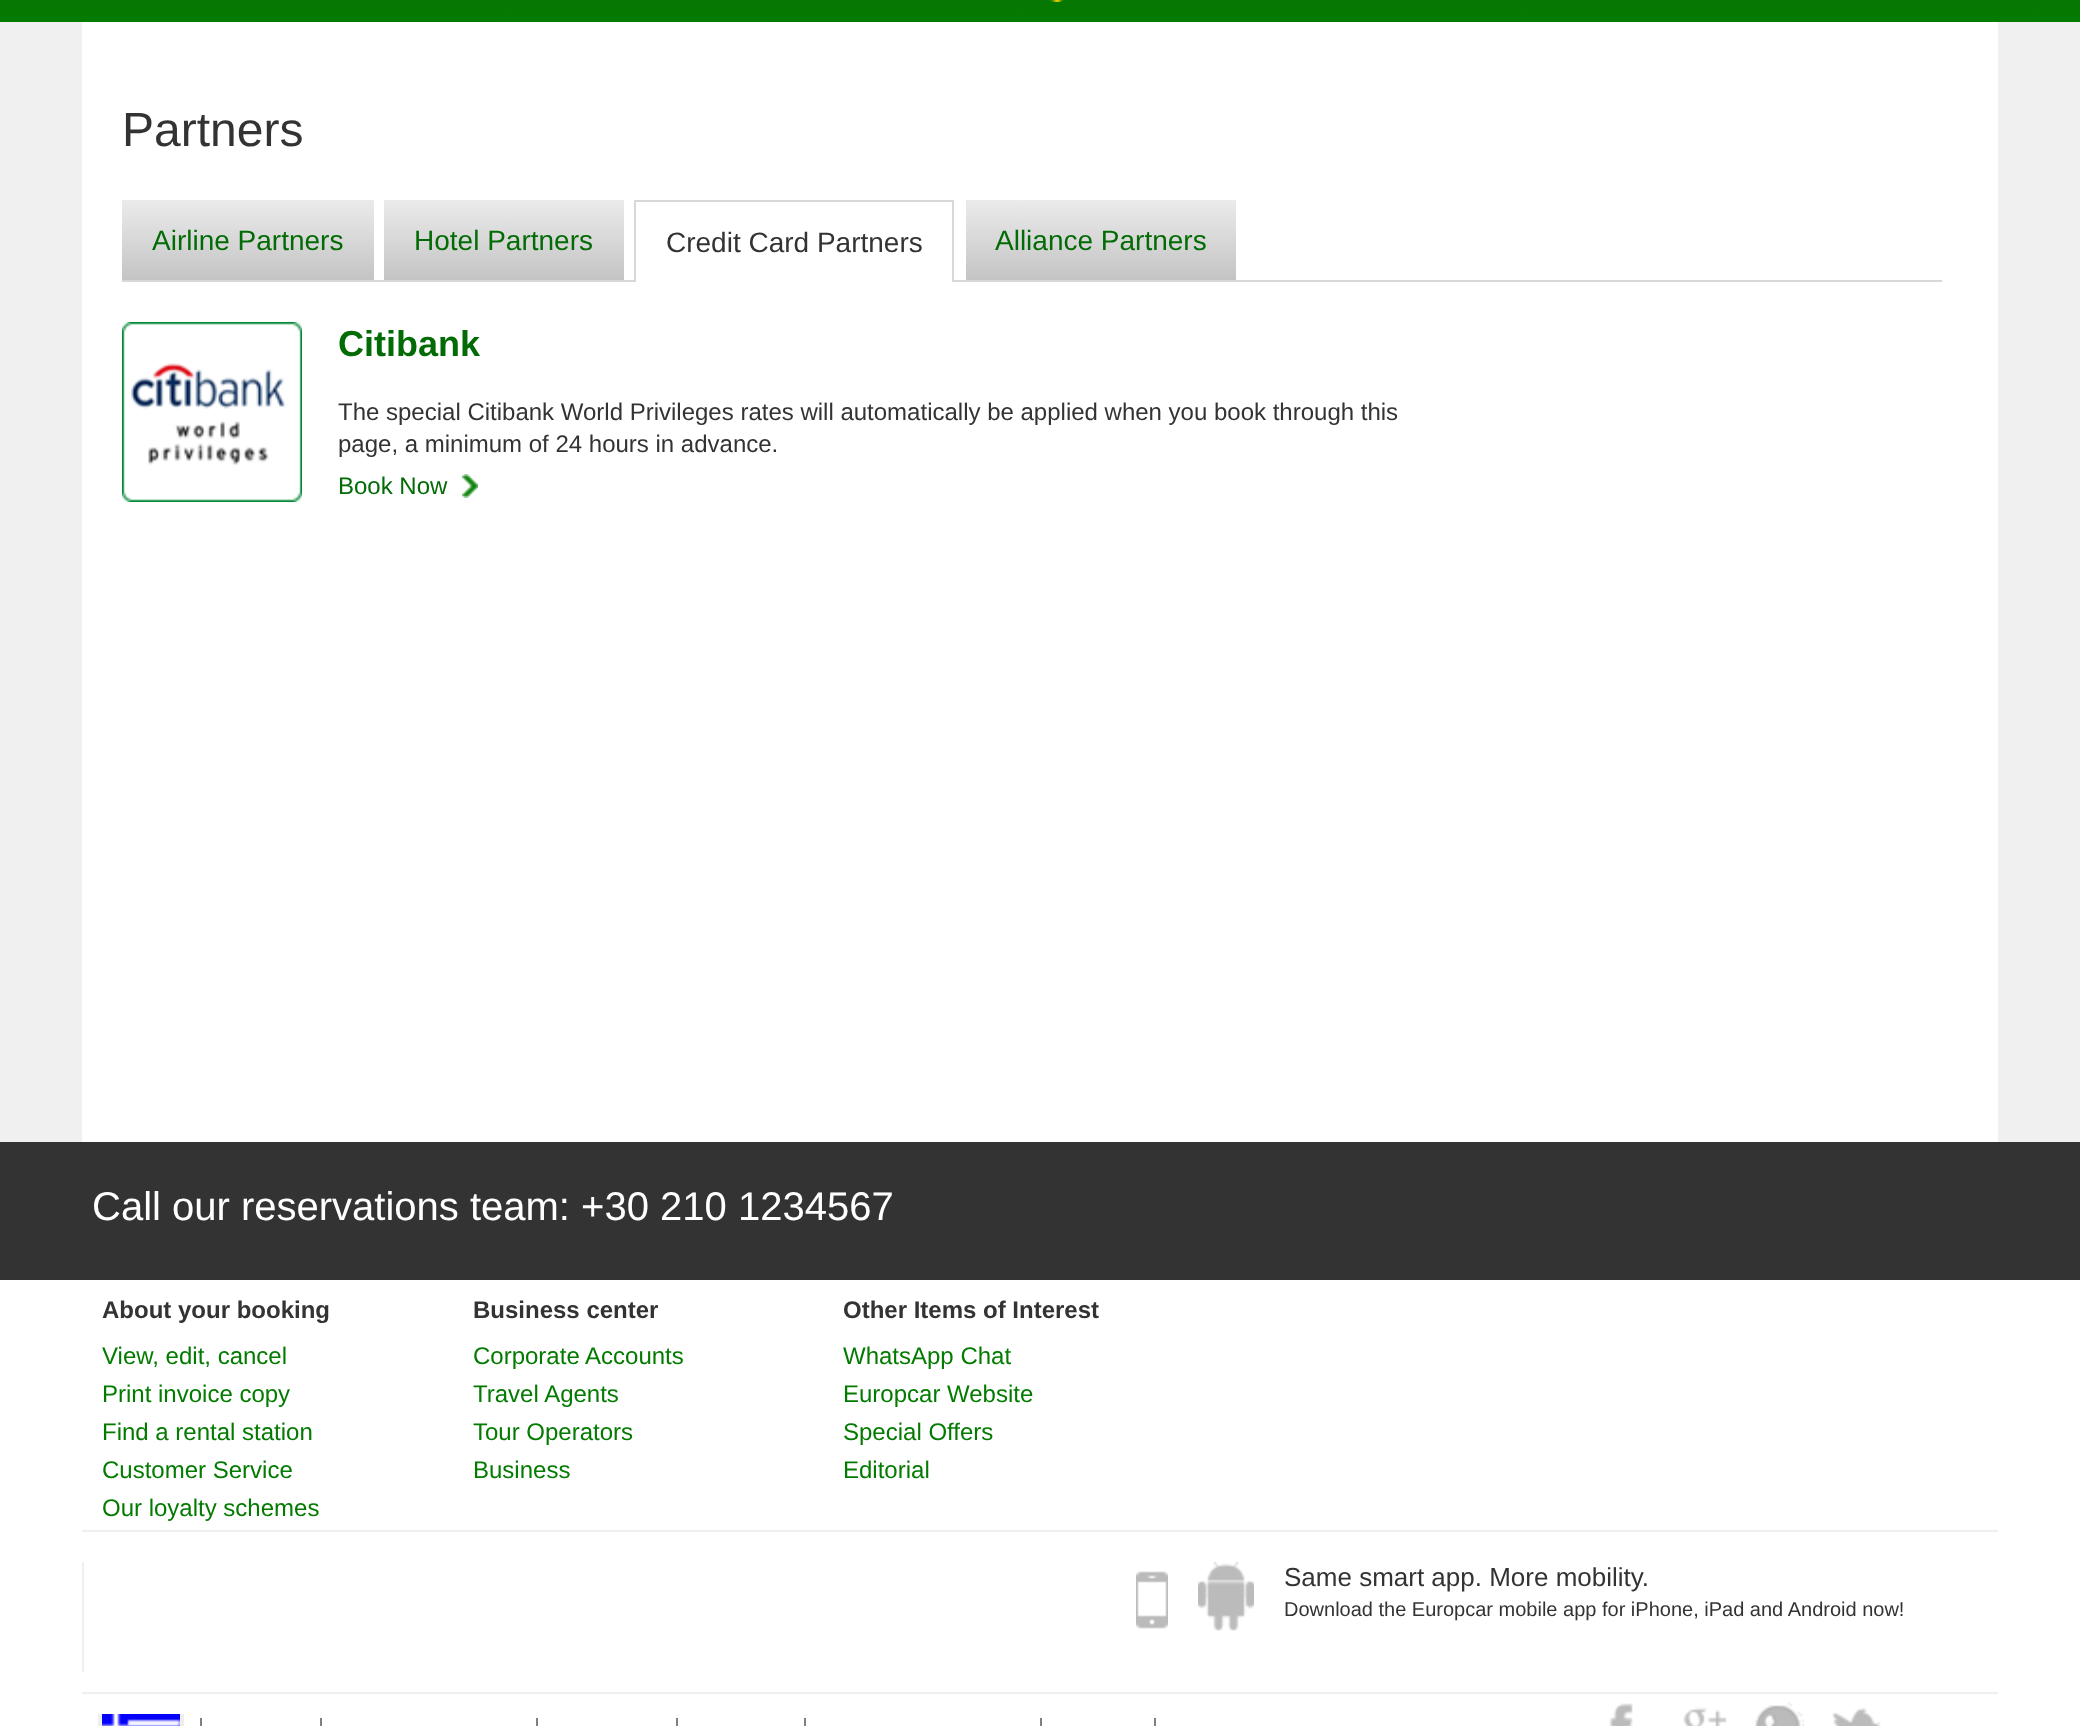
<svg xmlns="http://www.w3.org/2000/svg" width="2080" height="1726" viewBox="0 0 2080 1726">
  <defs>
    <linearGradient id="g1" gradientUnits="userSpaceOnUse" x1="0" y1="-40" x2="0" y2="22"><stop offset="0" stop-color="rgb(11,111,9)"/><stop offset="1" stop-color="rgb(3,123,0)"/></linearGradient>
    <linearGradient id="g2" gradientUnits="userSpaceOnUse" x1="122" y1="200" x2="122" y2="280"><stop offset="0" stop-color="rgb(235,235,235)"/><stop offset="1" stop-color="rgb(196,196,196)"/></linearGradient>
    <linearGradient id="g3" gradientUnits="userSpaceOnUse" x1="384" y1="200" x2="384" y2="280"><stop offset="0" stop-color="rgb(235,235,235)"/><stop offset="1" stop-color="rgb(196,196,196)"/></linearGradient>
    <linearGradient id="g4" gradientUnits="userSpaceOnUse" x1="966" y1="200" x2="966" y2="280"><stop offset="0" stop-color="rgb(235,235,235)"/><stop offset="1" stop-color="rgb(196,196,196)"/></linearGradient>
    <clipPath id="clip1"><rect x="82" y="1714" width="1324" height="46"/></clipPath>
  </defs>
  <rect width="100%" height="100%" fill="rgb(240,240,240)"/>
  <rect x="0" y="0" width="2080" height="22" fill="url(#g1)"/>
  <image x="1049" y="0" width="16" height="2" href="pic1.png"/>
  <rect x="82" y="22" width="1916" height="1120" fill="rgb(255,255,255)"/>
  <text x="122" y="146" font-family="Liberation Sans" font-size="48" fill="rgb(51,51,51)">Partners</text>
  <rect x="122" y="280" width="1820" height="2" fill="rgb(216,216,216)"/>
  <rect x="122" y="200" width="252" height="80" fill="url(#g2)"/>
  <text x="152" y="250" font-family="Liberation Sans" font-size="28" fill="rgb(3,107,5)">Airline Partners</text>
  <rect x="384" y="200" width="240" height="80" fill="url(#g3)"/>
  <text x="414" y="250" font-family="Liberation Sans" font-size="28" fill="rgb(3,107,5)">Hotel Partners</text>
  <rect x="636" y="280" width="316" height="2" fill="rgb(255,255,255)"/>
  <rect x="634" y="200" width="320" height="2" fill="rgb(216,216,216)"/>
  <rect x="952" y="200" width="2" height="82" fill="rgb(216,216,216)"/>
  <rect x="634" y="200" width="2" height="82" fill="rgb(216,216,216)"/>
  <text x="666" y="252" font-family="Liberation Sans" font-size="28" fill="rgb(51,51,51)">Credit Card Partners</text>
  <rect x="966" y="200" width="270" height="80" fill="url(#g4)"/>
  <text x="995" y="250" font-family="Liberation Sans" font-size="28" fill="rgb(3,107,5)">Alliance Partners</text>
  <image x="122" y="322" width="180" height="180" href="pic2.png"/>
  <text x="338" y="356" font-family="Liberation Sans" font-size="36" font-weight="bold" fill="rgb(3,107,5)">Citibank</text>
  <g font-family="Liberation Sans" font-size="24" fill="rgb(51,51,51)">
    <text>
      <tspan x="338" y="420">The special Citibank World Privileges rates will automatically be applied when you book through this</tspan>
      <tspan x="338" y="452">page, a minimum of 24 hours in advance.</tspan>
    </text>
  </g>
  <image x="462" y="474" width="16" height="24" href="pic3.png"/>
  <text x="338" y="494" font-family="Liberation Sans" font-size="24" fill="rgb(3,107,5)">Book Now</text>
  <rect x="0" y="1280" width="2080" height="446" fill="rgb(255,255,255)"/>
  <rect x="0" y="1142" width="2080" height="138" fill="rgb(51,51,51)"/>
  <text x="92" y="1220" font-family="Liberation Sans" font-size="40" fill="rgb(255,255,255)">Call our reservations team: +30 210 1234567</text>
  <text x="102" y="1318" font-family="Liberation Sans" font-size="24" font-weight="bold" fill="rgb(51,51,51)">About your booking</text>
  <g font-family="Liberation Sans" font-size="24" fill="rgb(3,123,0)">
    <text>
      <tspan x="102" y="1364">View, edit, cancel</tspan>
      <tspan x="102" y="1402">Print invoice copy</tspan>
      <tspan x="102" y="1440">Find a rental station</tspan>
      <tspan x="102" y="1478">Customer Service</tspan>
      <tspan x="102" y="1516">Our loyalty schemes</tspan>
    </text>
  </g>
  <text x="473" y="1318" font-family="Liberation Sans" font-size="24" font-weight="bold" fill="rgb(51,51,51)">Business center</text>
  <g font-family="Liberation Sans" font-size="24" fill="rgb(3,123,0)">
    <text>
      <tspan x="473" y="1364">Corporate Accounts</tspan>
      <tspan x="473" y="1402">Travel Agents</tspan>
      <tspan x="473" y="1440">Tour Operators</tspan>
      <tspan x="473" y="1478">Business</tspan>
    </text>
  </g>
  <text x="843" y="1318" font-family="Liberation Sans" font-size="24" font-weight="bold" fill="rgb(51,51,51)">Other Items of Interest</text>
  <g font-family="Liberation Sans" font-size="24" fill="rgb(3,123,0)">
    <text>
      <tspan x="843" y="1364">WhatsApp Chat</tspan>
      <tspan x="843" y="1402">Europcar Website</tspan>
      <tspan x="843" y="1440">Special Offers</tspan>
      <tspan x="843" y="1478">Editorial</tspan>
    </text>
  </g>
  <rect x="82" y="1530" width="1916" height="2" fill="rgb(240,240,240)"/>
  <rect x="82" y="1562" width="2" height="110" fill="rgb(240,240,240)"/>
  <image x="1136" y="1571" width="32" height="58" href="pic4.png"/>
  <image x="1198" y="1562" width="56" height="69" href="pic5.png"/>
  <text x="1284" y="1586" font-family="Liberation Sans" font-size="26" fill="rgb(51,51,51)">Same smart app. More mobility.</text>
  <text x="1284" y="1616" font-family="Liberation Sans" font-size="20" fill="rgb(51,51,51)">Download the Europcar mobile app for iPhone, iPad and Android now!</text>
  <rect x="82" y="1692" width="1916" height="2" fill="rgb(240,240,240)"/>
  <image x="102" y="1714" width="78" height="12" href="pic6.png"/>
  <g clip-path="url(#clip1)">
    <rect x="100" y="1712" width="82" height="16" fill="none" stroke="rgb(238,238,238)" stroke-width="4"/>
  </g>
  <rect x="200" y="1718" width="2" height="8" fill="rgb(128,128,128)"/>
  <rect x="320" y="1718" width="2" height="8" fill="rgb(128,128,128)"/>
  <rect x="536" y="1718" width="2" height="8" fill="rgb(128,128,128)"/>
  <rect x="676" y="1718" width="2" height="8" fill="rgb(128,128,128)"/>
  <rect x="804" y="1718" width="2" height="8" fill="rgb(128,128,128)"/>
  <rect x="1040" y="1718" width="2" height="8" fill="rgb(128,128,128)"/>
  <rect x="1154" y="1718" width="2" height="8" fill="rgb(128,128,128)"/>
  <image x="1609" y="1703" width="24" height="23" href="pic7.png"/>
  <image x="1683" y="1707" width="44" height="19" href="pic8.png"/>
  <image x="1755" y="1701" width="50" height="25" href="pic9.png"/>
  <image x="1832" y="1707" width="49" height="19" href="pic10.png"/>
</svg>
